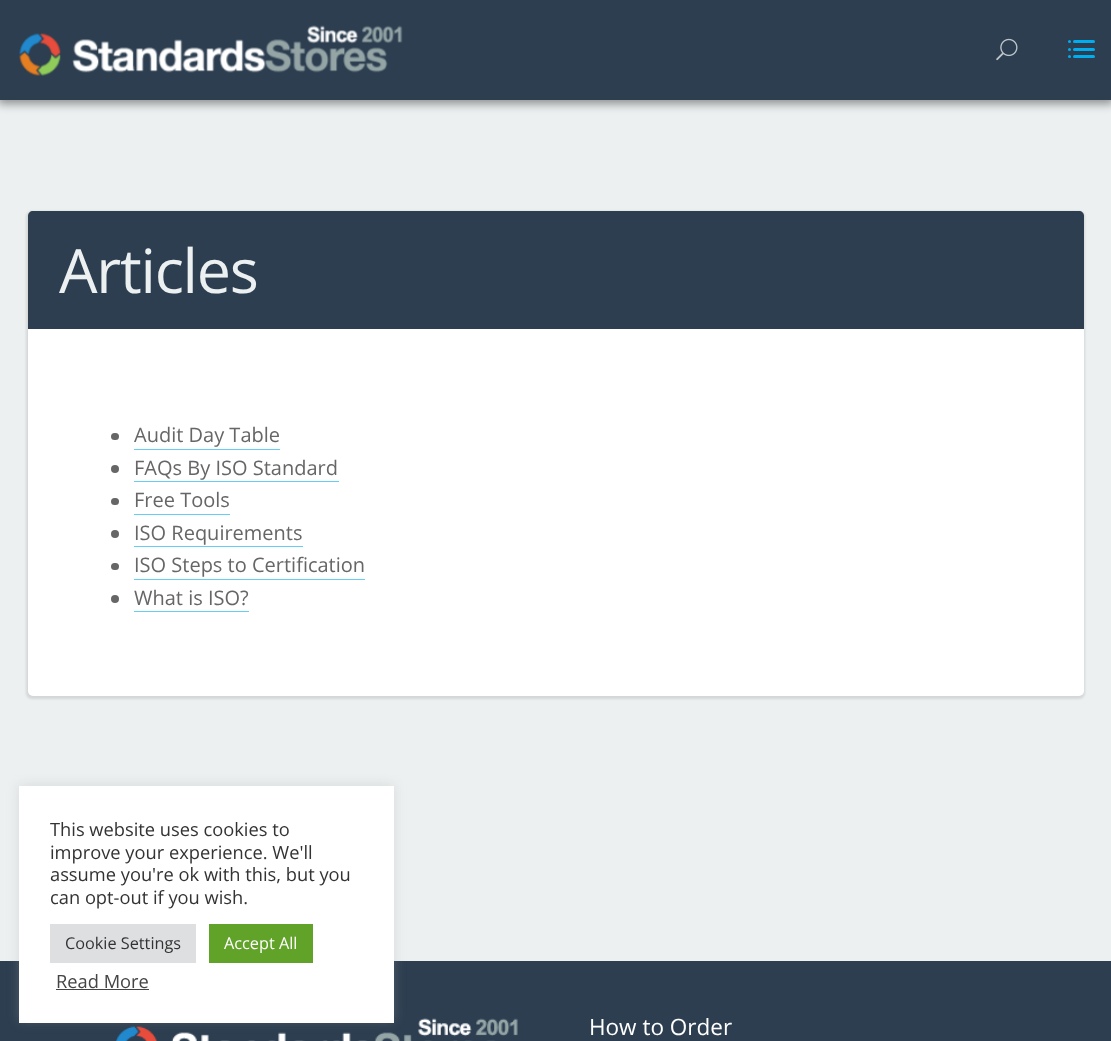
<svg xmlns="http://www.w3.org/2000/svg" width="1111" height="1041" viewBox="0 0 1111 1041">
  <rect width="100%" height="100%" fill="rgb(236,240,241)"/>
  <rect x="-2" y="-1" width="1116" height="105" fill="rgba(0,0,0,0.4)" filter="blur(5px)"/>
  <rect x="0" y="0" width="1111" height="100" fill="rgb(44,62,80)"/>
  <image x="19" y="25" width="384" height="51" href="pic1.png"/>
  <image x="996" y="38" width="22" height="23" href="pic2.png"/>
  <circle cx="1069.5" cy="41.5" r="1.5" fill="rgb(0,173,238)"/>
  <rect x="1073" y="40" width="22" height="3" rx="1.5" fill="rgb(0,173,238)"/>
  <circle cx="1069.5" cy="49.5" r="1.5" fill="rgb(0,173,238)"/>
  <rect x="1073" y="48" width="22" height="3" rx="1.5" fill="rgb(0,173,238)"/>
  <circle cx="1069.5" cy="56.5" r="1.5" fill="rgb(0,173,238)"/>
  <rect x="1073" y="55" width="22" height="3" rx="1.5" fill="rgb(0,173,238)"/>
  <rect x="26" y="211" width="1059" height="488" rx="6" fill="rgba(0,0,0,0.1)" filter="blur(1px)"/>
  <rect x="28" y="211" width="1056" height="485" rx="5" fill="rgb(255,255,255)"/>
  <path d="M33 211H1079C1082 211 1084 213 1084 216V329H28V216C28 213 30 211 33 211Z" fill="rgb(44,62,80)"/>
  <text x="59" y="293" font-family="Open Sans" font-size="61" letter-spacing="-1.25" fill="rgb(236,240,241)">Articles</text>
  <rect x="111" y="433" width="8" height="7" rx="3.5" fill="rgb(102,102,102)"/>
  <text x="134" y="442" font-family="Open Sans" font-size="20" fill="rgb(102,102,102)">Audit Day Table</text>
  <rect x="134" y="449" width="146" height="1" fill="rgb(102,206,245)"/>
  <circle cx="115" cy="469" r="4" fill="rgb(102,102,102)"/>
  <text x="134" y="475" font-family="Open Sans" font-size="20" fill="rgb(102,102,102)">FAQs By ISO Standard</text>
  <rect x="134" y="481" width="205" height="1" fill="rgb(102,206,245)"/>
  <rect x="111" y="498" width="8" height="7" rx="3.5" fill="rgb(102,102,102)"/>
  <text x="134" y="507" font-family="Open Sans" font-size="20" fill="rgb(102,102,102)">Free Tools</text>
  <rect x="134" y="514" width="96" height="1" fill="rgb(102,206,245)"/>
  <circle cx="115" cy="534" r="4" fill="rgb(102,102,102)"/>
  <text x="134" y="540" font-family="Open Sans" font-size="20" fill="rgb(102,102,102)">ISO Requirements</text>
  <rect x="134" y="546" width="169" height="1" fill="rgb(102,206,245)"/>
  <rect x="111" y="563" width="8" height="7" rx="3.5" fill="rgb(102,102,102)"/>
  <text x="134" y="572" font-family="Open Sans" font-size="20" fill="rgb(102,102,102)">ISO Steps to Certification</text>
  <rect x="134" y="579" width="231" height="1" fill="rgb(102,206,245)"/>
  <circle cx="115" cy="599" r="4" fill="rgb(102,102,102)"/>
  <text x="134" y="605" font-family="Open Sans" font-size="20" fill="rgb(102,102,102)">What is ISO?</text>
  <rect x="134" y="611" width="115" height="1" fill="rgb(102,206,245)"/>
  <rect x="0" y="961" width="1111" height="80" fill="rgb(44,62,80)"/>
  <image x="115" y="1018" width="403" height="23" href="pic3.png"/>
  <text x="589" y="1035" font-family="Open Sans" font-size="22.5" fill="rgb(255,255,255)">How to Order</text>
  <rect x="19" y="785" width="375" height="236" fill="rgba(172,171,171,0.3)" filter="blur(6px)"/>
  <rect x="19" y="786" width="375" height="237" fill="rgb(255,255,255)"/>
  <g font-family="Open Sans" font-size="18.3" fill="rgb(51,51,51)">
    <text>
      <tspan x="50" y="836">This website uses cookies to</tspan>
      <tspan x="50" y="859">improve your experience. We'll</tspan>
      <tspan x="50" y="881">assume you're ok with this, but you</tspan>
      <tspan x="50" y="904">can opt-out if you wish.</tspan>
    </text>
  </g>
  <rect x="50" y="924" width="146" height="39" fill="rgb(222,223,224)"/>
  <text x="65" y="949" font-family="Open Sans" font-size="16.25" fill="rgb(51,51,51)">Cookie Settings</text>
  <rect x="209" y="924" width="104" height="39" fill="rgb(97,162,41)"/>
  <text x="224" y="949" font-family="Open Sans" font-size="16.25" fill="rgb(255,255,255)">Accept All</text>
  <text x="56" y="988" font-family="Open Sans" font-size="18.3" fill="rgb(68,68,68)">Read More</text>
  <rect x="56" y="989" width="93" height="1" fill="rgb(68,68,68)"/>
</svg>
